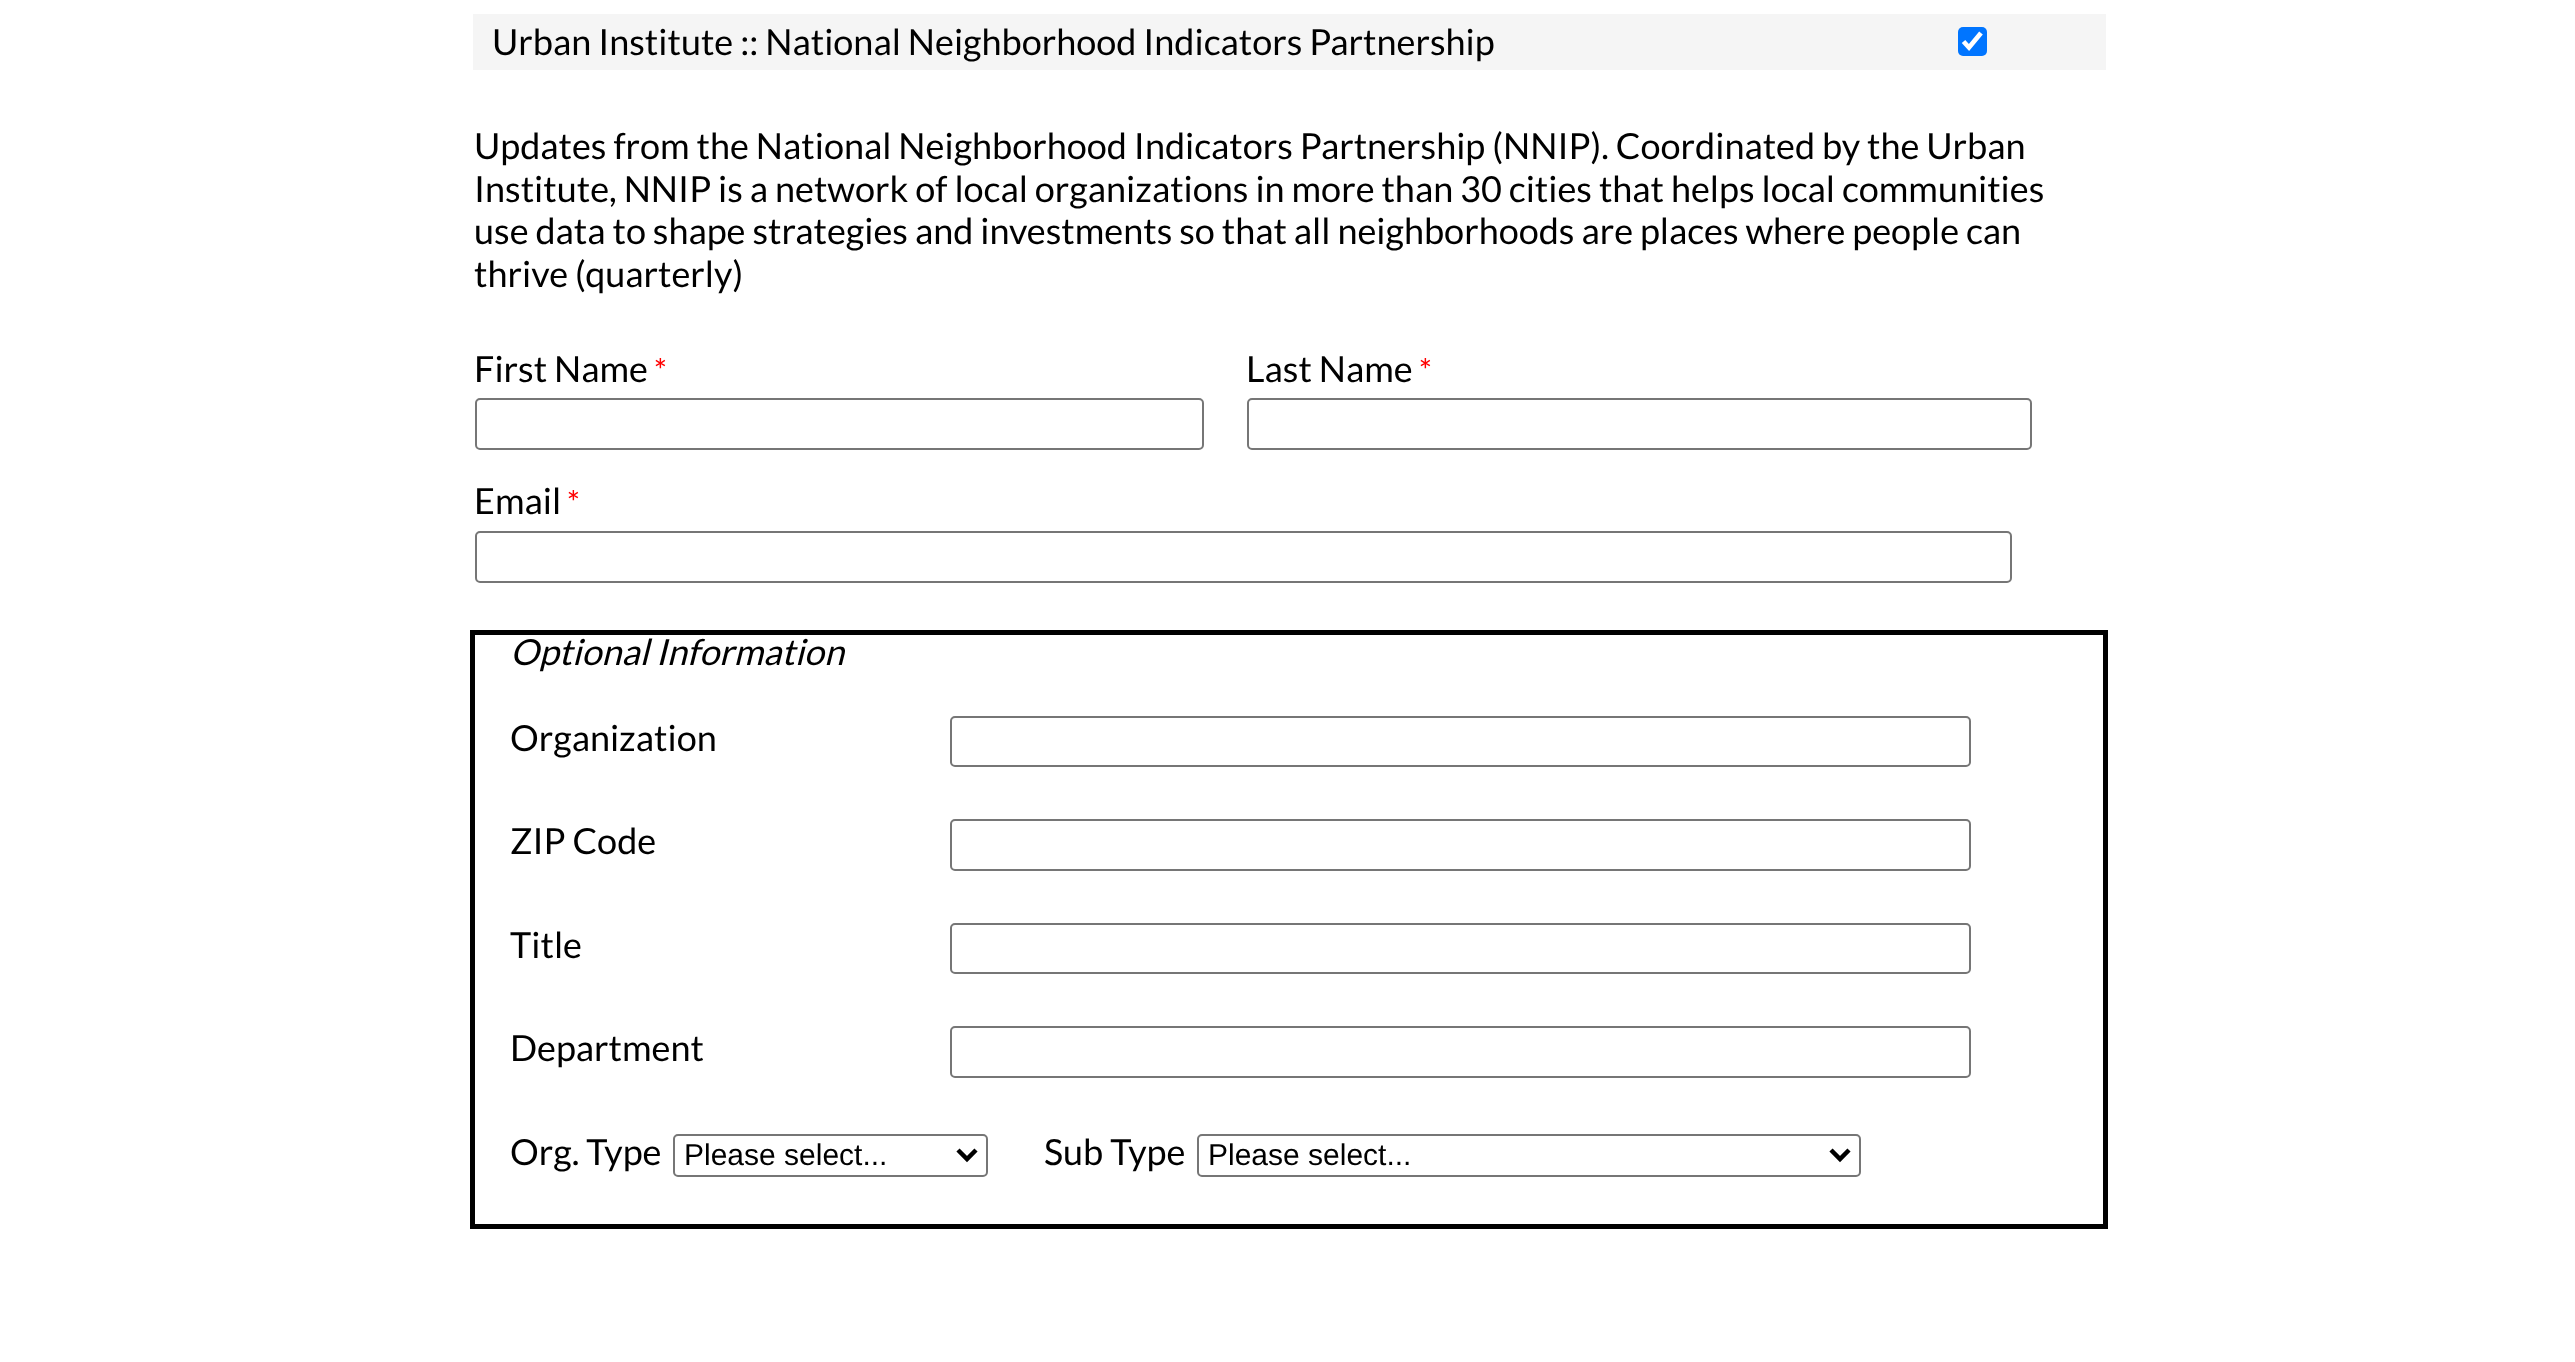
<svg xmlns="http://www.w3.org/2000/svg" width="2575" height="1362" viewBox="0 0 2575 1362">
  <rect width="100%" height="100%" fill="rgb(255,255,255)"/>
  <rect x="473" y="14" width="1633" height="56" fill="rgb(245,245,245)"/>
  <text x="492" y="55" font-family="Lato" font-size="36" fill="rgb(0,0,0)">Urban Institute :: National Neighborhood Indicators Partnership</text>
  <rect x="1958" y="27" width="29" height="29" rx="5" fill="rgb(0,117,255)"/>
  <path d="M1963.5 41.5L1969 47.5L1981 33" fill="none" stroke="rgb(255,255,255)" stroke-width="4.7"/>
  <g font-family="Lato" font-size="36" fill="rgb(0,0,0)">
    <text>
      <tspan x="474" y="159">Updates from the National Neighborhood Indicators Partnership (NNIP). Coordinated by the Urban</tspan>
      <tspan x="474" y="202">Institute, NNIP is a network of local organizations in more than 30 cities that helps local communities</tspan>
      <tspan x="474" y="244">use data to shape strategies and investments so that all neighborhoods are places where people can</tspan>
      <tspan x="474" y="287">thrive (quarterly)</tspan>
    </text>
    <text x="474" y="382">First Name</text>
  </g>
  <text x="654" y="382" font-family="Lato" font-size="32" fill="rgb(255,0,0)">*</text>
  <rect x="476" y="399" width="727" height="50" rx="4" fill="none" stroke="rgb(118,118,118)" stroke-width="2"/>
  <text x="1246" y="382" font-family="Lato" font-size="36" fill="rgb(0,0,0)">Last Name</text>
  <text x="1419" y="382" font-family="Lato" font-size="32" fill="rgb(255,0,0)">*</text>
  <rect x="1248" y="399" width="783" height="50" rx="4" fill="none" stroke="rgb(118,118,118)" stroke-width="2"/>
  <text x="474" y="514" font-family="Lato" font-size="36" fill="rgb(0,0,0)">Email</text>
  <text x="567" y="514" font-family="Lato" font-size="32" fill="rgb(255,0,0)">*</text>
  <rect x="476" y="532" width="1535" height="50" rx="4" fill="none" stroke="rgb(118,118,118)" stroke-width="2"/>
  <rect x="472.5" y="632.5" width="1633" height="594" fill="none" stroke="rgb(0,0,0)" stroke-width="5"/>
  <text x="510" y="665" font-family="Lato" font-size="36" font-style="italic" fill="rgb(0,0,0)">Optional Information</text>
  <text x="510" y="751" font-family="Lato" font-size="36" fill="rgb(0,0,0)">Organization</text>
  <rect x="951" y="717" width="1019" height="49" rx="4" fill="none" stroke="rgb(118,118,118)" stroke-width="2"/>
  <text x="510" y="854" font-family="Lato" font-size="36" fill="rgb(0,0,0)">ZIP Code</text>
  <rect x="951" y="820" width="1019" height="50" rx="4" fill="none" stroke="rgb(118,118,118)" stroke-width="2"/>
  <text x="510" y="958" font-family="Lato" font-size="36" fill="rgb(0,0,0)">Title</text>
  <rect x="951" y="924" width="1019" height="49" rx="4" fill="none" stroke="rgb(118,118,118)" stroke-width="2"/>
  <text x="510" y="1061" font-family="Lato" font-size="36" fill="rgb(0,0,0)">Department</text>
  <rect x="951" y="1027" width="1019" height="50" rx="4" fill="none" stroke="rgb(118,118,118)" stroke-width="2"/>
  <text x="510" y="1165" font-family="Lato" font-size="36" fill="rgb(0,0,0)">Org. Type</text>
  <rect x="674" y="1135" width="313" height="41" rx="4" fill="none" stroke="rgb(118,118,118)" stroke-width="2"/>
  <path d="M958 1150L967 1159L976 1150" fill="none" stroke="rgb(0,0,0)" stroke-width="4.5"/>
  <text x="684" y="1165" font-family="Liberation Sans" font-size="30" fill="rgb(0,0,0)">Please select...</text>
  <text x="1044" y="1165" font-family="Lato" font-size="36" fill="rgb(0,0,0)">Sub Type</text>
  <rect x="1198" y="1135" width="662" height="41" rx="4" fill="none" stroke="rgb(118,118,118)" stroke-width="2"/>
  <path d="M1831 1150L1840 1159L1849 1150" fill="none" stroke="rgb(0,0,0)" stroke-width="4.5"/>
  <text x="1208" y="1165" font-family="Liberation Sans" font-size="30" fill="rgb(0,0,0)">Please select...</text>
</svg>
